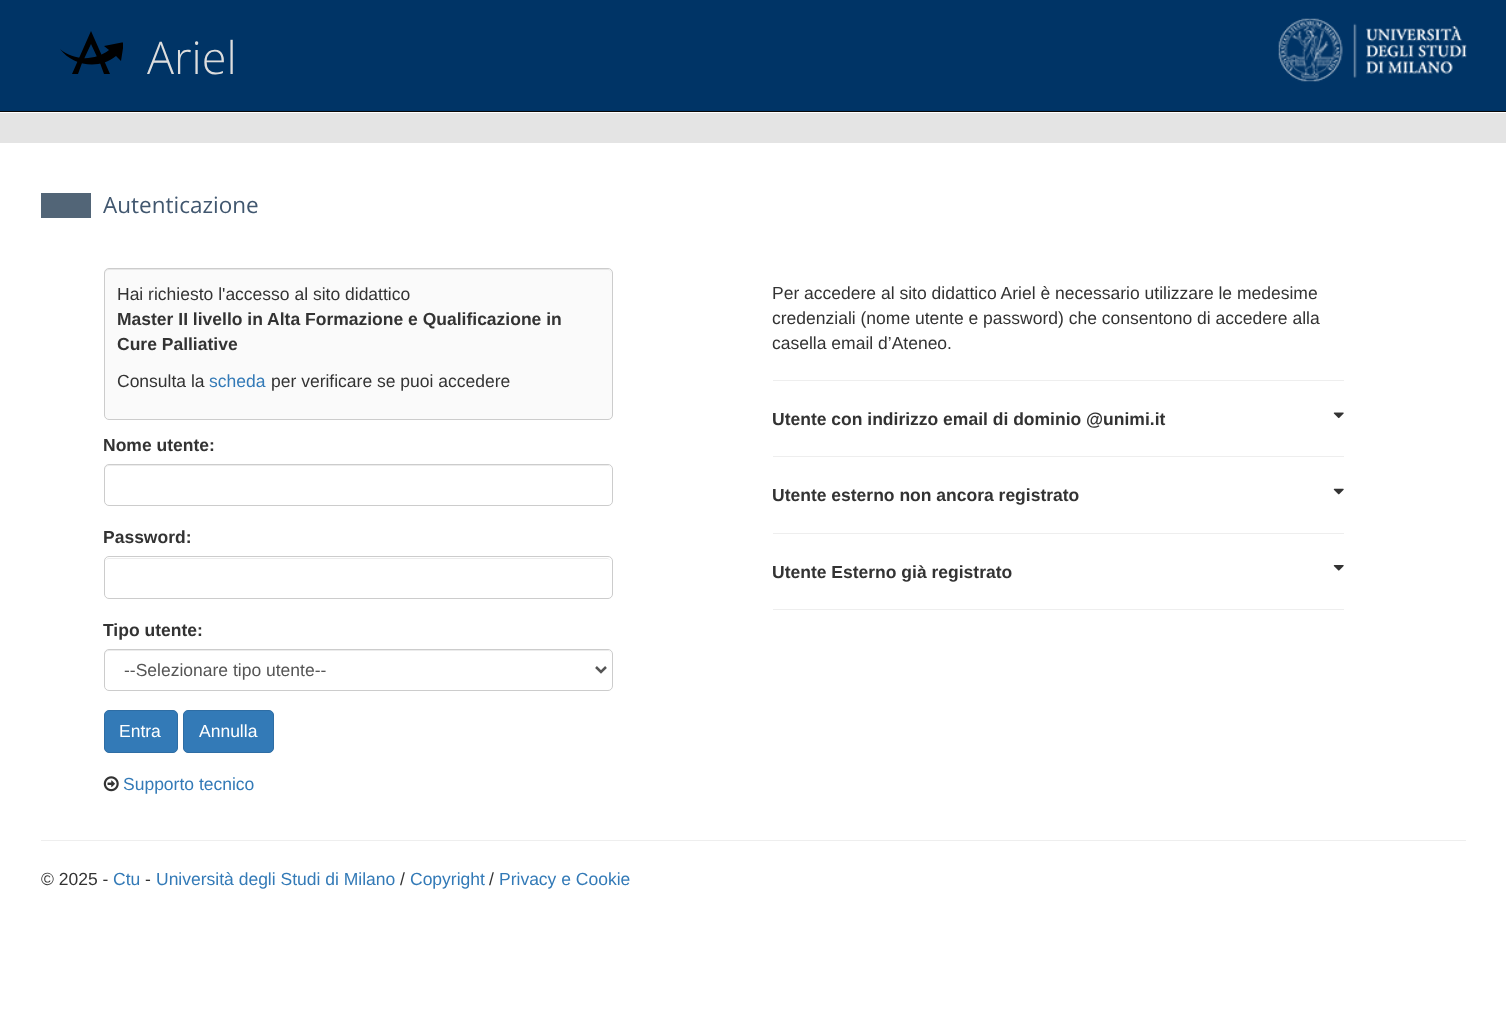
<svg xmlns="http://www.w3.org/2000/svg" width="1506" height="1022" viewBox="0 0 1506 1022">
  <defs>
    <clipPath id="clip1"><rect x="60" y="31" width="63" height="43"/></clipPath>
  </defs>
  <rect width="100%" height="100%" fill="rgb(255,255,255)"/>
  <rect x="0" y="0" width="1506" height="111" fill="rgb(0,52,102)"/>
  <rect x="0" y="111" width="1506" height="1" fill="rgb(9,9,9)"/>
  <path d="M91 31L110 74H104L100 63H82L78 74H72ZM91 44L84 59H98Z" fill="rgb(0,0,0)"/>
  <text x="147" y="74" font-family="Open Sans" font-size="45" font-weight="300" fill="rgb(221,221,221)">Ariel</text>
  <g clip-path="url(#clip1)">
    <path d="M124 42L121 61L116 56C99 70 73 66 60 49C74 61 95 61 109 50L104 46Z" fill="rgb(0,0,0)"/>
  </g>
  <image x="1278" y="18" width="189" height="64" href="pic1.png"/>
  <rect x="0" y="113" width="1506" height="30" fill="rgb(228,228,228)"/>
  <rect x="41" y="193" width="50" height="25" fill="rgb(82,101,119)"/>
  <text x="103" y="213" font-family="Open Sans" font-size="22.5" fill="rgb(65,87,111)">Autenticazione</text>
  <rect x="104" y="268" width="509" height="152" rx="5" fill="rgb(250,250,250)"/>
  <path d="M109 270H608C610 270 611 272 611 274V273C611 271 609 269 607 269H109C107 269 105 271 105 273V274C105 272 107 270 109 270Z" fill="rgb(231,231,231)"/>
  <rect x="104.5" y="268.5" width="508" height="151" rx="4.5" fill="none" stroke="rgb(204,204,204)"/>
  <text x="117" y="300" font-family="Liberation Sans" font-size="17.5" fill="rgb(51,51,51)">Hai richiesto l'accesso al sito didattico</text>
  <g font-family="Liberation Sans" font-size="17.5" font-weight="bold" fill="rgb(51,51,51)">
    <text>
      <tspan x="117" y="325">Master II livello in Alta Formazione e Qualificazione in</tspan>
      <tspan x="117" y="350">Cure Palliative</tspan>
    </text>
  </g>
  <text x="117" y="387" font-family="Liberation Sans" font-size="17.5" fill="rgb(51,51,51)">Consulta la</text>
  <text x="209" y="387" font-family="Liberation Sans" font-size="17.5" fill="rgb(51,122,183)">scheda</text>
  <text x="271" y="387" font-family="Liberation Sans" font-size="17.5" fill="rgb(51,51,51)">per verificare se puoi accedere</text>
  <text x="103" y="451" font-family="Liberation Sans" font-size="17.5" font-weight="bold" fill="rgb(51,51,51)">Nome utente:</text>
  <path d="M109 466H608C610 466 611 468 611 470V469C611 467 609 465 607 465H109C107 465 105 467 105 469V470C105 468 107 466 109 466Z" fill="rgb(236,236,236)"/>
  <rect x="104.5" y="464.5" width="508" height="41" rx="4.5" fill="none" stroke="rgb(204,204,204)"/>
  <text x="103" y="543" font-family="Liberation Sans" font-size="17.5" font-weight="bold" fill="rgb(51,51,51)">Password:</text>
  <path d="M109 559H608L610 560C610 559 608 558 607 558H109C107 558 105 560 105 562C105 560 107 559 109 559Z" fill="rgb(236,236,236)"/>
  <rect x="104.5" y="556.5" width="508" height="42" rx="4.5" fill="none" stroke="rgb(204,204,204)"/>
  <text x="103" y="636" font-family="Liberation Sans" font-size="17.5" font-weight="bold" fill="rgb(51,51,51)">Tipo utente:</text>
  <path d="M109 651H608C610 651 611 653 611 655V654C611 652 609 650 607 650H109C107 650 105 652 105 654V655C105 653 107 651 109 651Z" fill="rgb(236,236,236)"/>
  <rect x="104.5" y="649.5" width="508" height="41" rx="4.5" fill="none" stroke="rgb(204,204,204)"/>
  <path d="M596 667L601 672L606 667" fill="none" stroke="rgb(85,85,85)" stroke-width="2.5"/>
  <text x="124" y="676" font-family="Liberation Sans" font-size="17.5" fill="rgb(85,85,85)">--Selezionare tipo utente--</text>
  <rect x="104.5" y="710.5" width="73" height="42" rx="4.5" fill="rgb(51,122,183)" stroke="rgb(46,109,164)"/>
  <text x="119" y="737" font-family="Liberation Sans" font-size="17.5" fill="rgb(255,255,255)">Entra</text>
  <rect x="183.5" y="710.5" width="90" height="42" rx="4.5" fill="rgb(51,122,183)" stroke="rgb(46,109,164)"/>
  <text x="199" y="737" font-family="Liberation Sans" font-size="17.5" fill="rgb(255,255,255)">Annulla</text>
  <image x="103" y="776" width="16" height="16" href="pic2.png"/>
  <text x="123" y="790" font-family="Liberation Sans" font-size="17.5" fill="rgb(51,122,183)">Supporto tecnico</text>
  <g font-family="Liberation Sans" font-size="17.5" fill="rgb(51,51,51)">
    <text>
      <tspan x="772" y="299">Per accedere al sito didattico Ariel è necessario utilizzare le medesime</tspan>
      <tspan x="772" y="324">credenziali (nome utente e password) che consentono di accedere alla</tspan>
      <tspan x="772" y="349">casella email d’Ateneo.</tspan>
    </text>
  </g>
  <rect x="773" y="380" width="571" height="1" fill="rgb(238,238,238)"/>
  <text x="772" y="425" font-family="Liberation Sans" font-size="17.5" font-weight="bold" fill="rgb(51,51,51)">Utente con indirizzo email di dominio @unimi.it</text>
  <image x="1333" y="412" width="11" height="7" href="pic3.png"/>
  <rect x="773" y="456" width="571" height="1" fill="rgb(238,238,238)"/>
  <text x="772" y="501" font-family="Liberation Sans" font-size="17.5" font-weight="bold" fill="rgb(51,51,51)">Utente esterno non ancora registrato</text>
  <image x="1333" y="488" width="11" height="7" href="pic4.png"/>
  <rect x="773" y="533" width="571" height="1" fill="rgb(238,238,238)"/>
  <text x="772" y="578" font-family="Liberation Sans" font-size="17.5" font-weight="bold" fill="rgb(51,51,51)">Utente Esterno già registrato</text>
  <image x="1333" y="565" width="11" height="6" href="pic5.png"/>
  <rect x="773" y="609" width="571" height="1" fill="rgb(238,238,238)"/>
  <rect x="41" y="840" width="1425" height="1" fill="rgb(238,238,238)"/>
  <text x="41" y="885" font-family="Liberation Sans" font-size="17.5" fill="rgb(51,51,51)">© 2025 -</text>
  <text x="113" y="885" font-family="Liberation Sans" font-size="17.5" fill="rgb(51,122,183)">Ctu</text>
  <text x="145" y="885" font-family="Liberation Sans" font-size="17.5" fill="rgb(51,51,51)">-</text>
  <text x="156" y="885" font-family="Liberation Sans" font-size="17.5" fill="rgb(51,122,183)">Università degli Studi di Milano</text>
  <text x="400" y="885" font-family="Liberation Sans" font-size="17.5" fill="rgb(51,51,51)">/</text>
  <text x="410" y="885" font-family="Liberation Sans" font-size="17.5" fill="rgb(51,122,183)">Copyright</text>
  <text x="489" y="885" font-family="Liberation Sans" font-size="17.5" fill="rgb(51,51,51)">/</text>
  <text x="499" y="885" font-family="Liberation Sans" font-size="17.5" fill="rgb(51,122,183)">Privacy e Cookie</text>
</svg>
